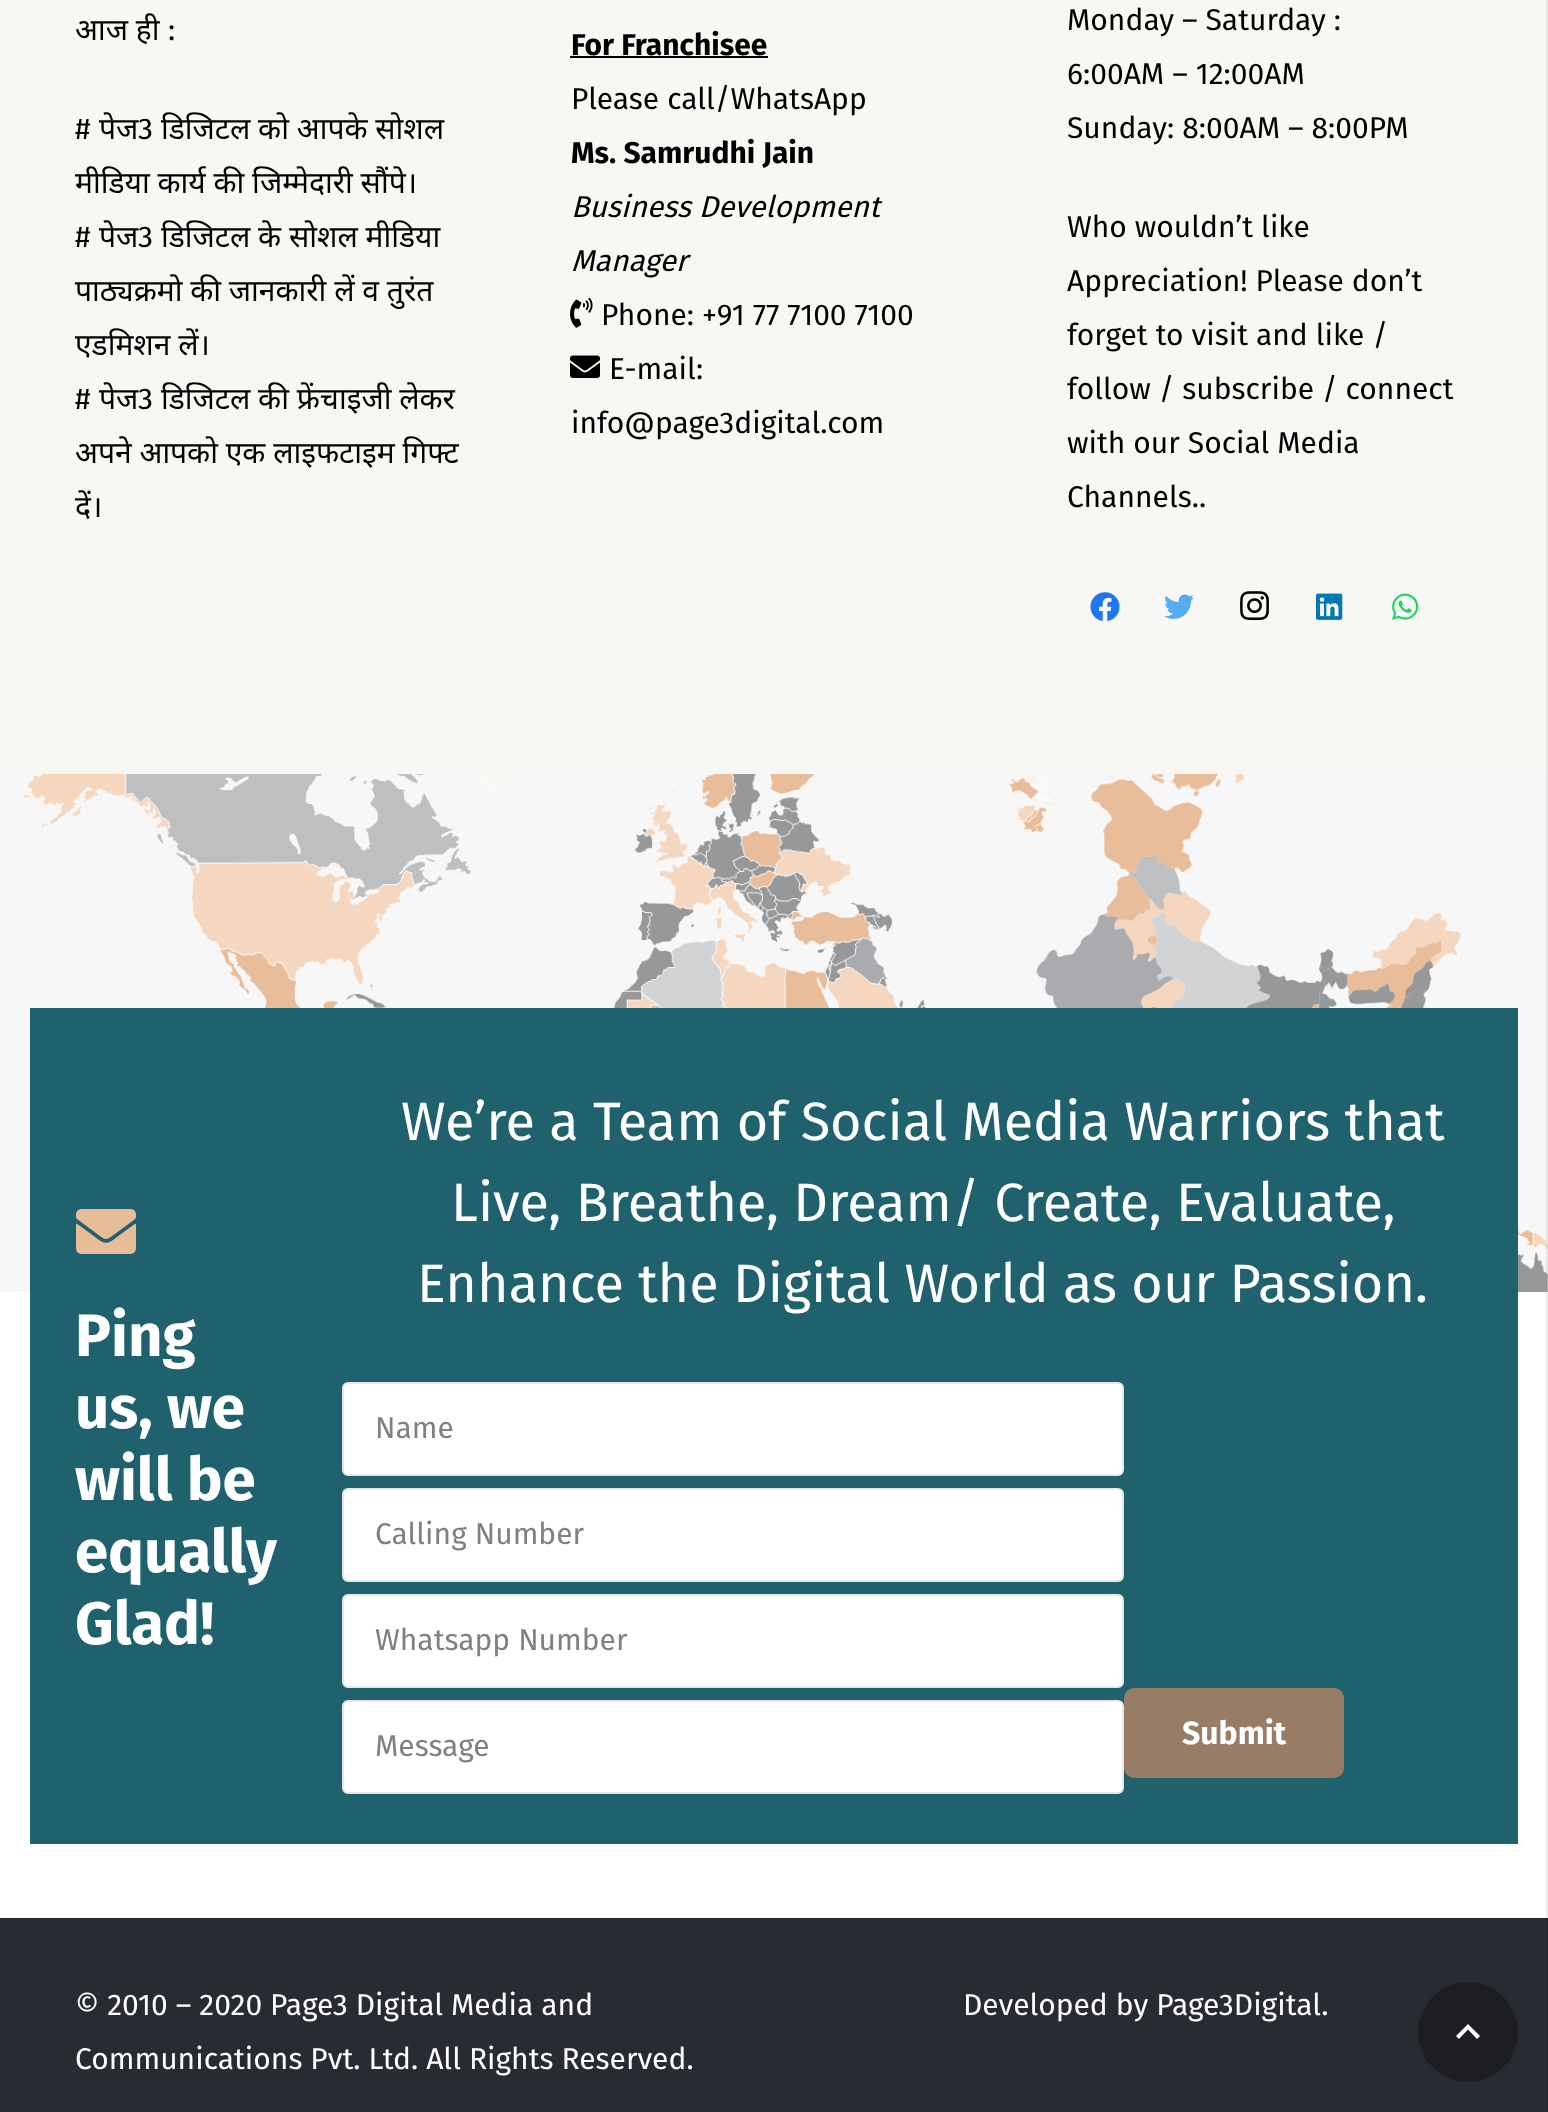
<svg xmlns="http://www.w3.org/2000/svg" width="1548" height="2112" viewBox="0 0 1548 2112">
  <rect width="100%" height="100%" fill="rgb(255,255,255)"/>
  <rect x="0" y="0" width="1548" height="774" fill="rgb(248,247,243)"/>
  <text x="75" y="40" font-family="Noto Sans" font-size="30" fill="rgb(0,0,0)">आज ही</text>
  <g font-family="Fira Sans" font-size="30" fill="rgb(0,0,0)">
    <text x="168" y="40">:</text>
    <text x="75" y="139">#</text>
  </g>
  <text x="99" y="139" font-family="Noto Sans" font-size="30" fill="rgb(0,0,0)">पेज</text>
  <text x="138" y="139" font-family="Fira Sans" font-size="30" fill="rgb(0,0,0)">3</text>
  <g font-family="Noto Sans" font-size="30" fill="rgb(0,0,0)">
    <text x="161" y="139">डिजिटल को आपके सोशल</text>
    <text x="75" y="193">मीडिया कार्य की जिम्मेदारी सौंपे।</text>
  </g>
  <text x="75" y="247" font-family="Fira Sans" font-size="30" fill="rgb(0,0,0)">#</text>
  <text x="99" y="247" font-family="Noto Sans" font-size="30" fill="rgb(0,0,0)">पेज</text>
  <text x="138" y="247" font-family="Fira Sans" font-size="30" fill="rgb(0,0,0)">3</text>
  <g font-family="Noto Sans" font-size="30" fill="rgb(0,0,0)">
    <text x="161" y="247">डिजिटल के सोशल मीडिया</text>
    <text>
      <tspan x="75" y="301">पाठ्यक्रमो की जानकारी लें व तुरंत</tspan>
      <tspan x="75" y="355">एडमिशन लें।</tspan>
    </text>
  </g>
  <text x="75" y="409" font-family="Fira Sans" font-size="30" fill="rgb(0,0,0)">#</text>
  <text x="99" y="409" font-family="Noto Sans" font-size="30" fill="rgb(0,0,0)">पेज</text>
  <text x="138" y="409" font-family="Fira Sans" font-size="30" fill="rgb(0,0,0)">3</text>
  <g font-family="Noto Sans" font-size="30" fill="rgb(0,0,0)">
    <text x="161" y="409">डिजिटल की फ्रेंचाइजी लेकर</text>
    <text>
      <tspan x="75" y="463">अपने आपको एक लाइफटाइम गिफ्ट</tspan>
      <tspan x="75" y="517">दें।</tspan>
    </text>
  </g>
  <text x="571" y="55" font-family="Fira Sans" font-size="30" font-weight="bold" fill="rgb(0,0,0)">For Franchisee</text>
  <rect x="570" y="56" width="198" height="2" fill="rgb(0,0,0)"/>
  <text x="571" y="109" font-family="Fira Sans" font-size="30" fill="rgb(0,0,0)">Please call/WhatsApp</text>
  <text x="571" y="163" font-family="Fira Sans" font-size="30" font-weight="bold" fill="rgb(0,0,0)">Ms. Samrudhi Jain</text>
  <g font-family="Fira Sans" font-size="30" font-style="italic" fill="rgb(0,0,0)">
    <text>
      <tspan x="571" y="217">Business Development</tspan>
      <tspan x="571" y="271">Manager</tspan>
    </text>
  </g>
  <image x="570" y="297" width="23" height="31" href="pic1.png"/>
  <text x="601" y="325" font-family="Fira Sans" font-size="30" fill="rgb(0,0,0)">Phone: +91 77 7100 7100</text>
  <image x="570" y="355" width="30" height="23" href="pic2.png"/>
  <g font-family="Fira Sans" font-size="30" fill="rgb(0,0,0)">
    <text x="609" y="379">E-mail:</text>
    <text x="571" y="433">info@page3digital.com</text>
    <text>
      <tspan x="1067" y="30">Monday – Saturday :</tspan>
      <tspan x="1067" y="84">6:00AM – 12:00AM</tspan>
      <tspan x="1067" y="138">Sunday: 8:00AM – 8:00PM</tspan>
    </text>
    <text>
      <tspan x="1067" y="237">Who wouldn’t like</tspan>
      <tspan x="1067" y="291">Appreciation! Please don’t</tspan>
      <tspan x="1067" y="345">forget to visit and like /</tspan>
      <tspan x="1067" y="399">follow / subscribe / connect</tspan>
      <tspan x="1067" y="453">with our Social Media</tspan>
      <tspan x="1067" y="507">Channels..</tspan>
    </text>
  </g>
  <image x="1090" y="592" width="30" height="29" href="pic3.png"/>
  <image x="1164" y="594" width="30" height="25" href="pic4.png"/>
  <image x="1240" y="591" width="29" height="30" href="pic5.png"/>
  <image x="1316" y="593" width="27" height="27" href="pic6.png"/>
  <image x="1392" y="593" width="27" height="27" href="pic7.png"/>
  <image x="0" y="774" width="1548" height="518" href="pic8.png"/>
  <rect x="30" y="1008" width="1488" height="836" fill="rgb(31,98,110)"/>
  <image x="76" y="1209" width="60" height="45" href="pic9.png"/>
  <g font-family="Fira Sans" font-size="60" font-weight="bold" fill="rgb(255,255,255)">
    <text>
      <tspan x="75" y="1356">Ping</tspan>
      <tspan x="75" y="1428">us, we</tspan>
      <tspan x="75" y="1500">will be</tspan>
      <tspan x="75" y="1572">equally</tspan>
      <tspan x="75" y="1644">Glad!</tspan>
    </text>
  </g>
  <g font-family="Fira Sans" font-size="54" fill="rgb(255,255,255)">
    <text x="401" y="1140">We’re a Team of Social Media Warriors that</text>
    <text x="451" y="1221">Live, Breathe, Dream/ Create, Evaluate,</text>
    <text x="417" y="1302">Enhance the Digital World as our Passion.</text>
  </g>
  <rect x="343" y="1383" width="780" height="92" rx="5" fill="rgb(255,255,255)" stroke="rgb(232,232,232)" stroke-width="2"/>
  <text x="375" y="1438" font-family="Fira Sans" font-size="30" fill="rgb(128,128,128)">Name</text>
  <rect x="343" y="1489" width="780" height="92" rx="5" fill="rgb(255,255,255)" stroke="rgb(232,232,232)" stroke-width="2"/>
  <text x="375" y="1544" font-family="Fira Sans" font-size="30" fill="rgb(128,128,128)">Calling Number</text>
  <rect x="343" y="1595" width="780" height="92" rx="5" fill="rgb(255,255,255)" stroke="rgb(232,232,232)" stroke-width="2"/>
  <text x="375" y="1650" font-family="Fira Sans" font-size="30" fill="rgb(128,128,128)">Whatsapp Number</text>
  <rect x="1124" y="1688" width="220" height="90" rx="10" fill="rgb(151,125,102)"/>
  <text x="1182" y="1744" font-family="Fira Sans" font-size="32" font-weight="bold" fill="rgb(255,255,255)">Submit</text>
  <rect x="343" y="1701" width="780" height="92" rx="5" fill="rgb(255,255,255)" stroke="rgb(232,232,232)" stroke-width="2"/>
  <text x="375" y="1756" font-family="Fira Sans" font-size="30" fill="rgb(128,128,128)">Message</text>
  <rect x="0" y="1918" width="1548" height="194" fill="rgb(41,43,51)"/>
  <g font-family="Fira Sans" font-size="30" fill="rgb(255,255,255)">
    <text>
      <tspan x="75" y="2015">© 2010 – 2020 Page3 Digital Media and</tspan>
      <tspan x="75" y="2069">Communications Pvt. Ltd. All Rights Reserved.</tspan>
    </text>
    <text x="963" y="2015">Developed by Page3Digital.</text>
  </g>
  <circle cx="1468" cy="2032" r="50" fill="rgb(29,30,36)"/>
  <path d="M1459 2039L1456 2036L1468 2024L1480 2036L1477 2039L1468 2029.5Z" fill="rgb(255,255,255)"/>
  <rect x="1546" y="0" width="2" height="2112" fill="rgba(0,0,0,0.08)"/>
</svg>
